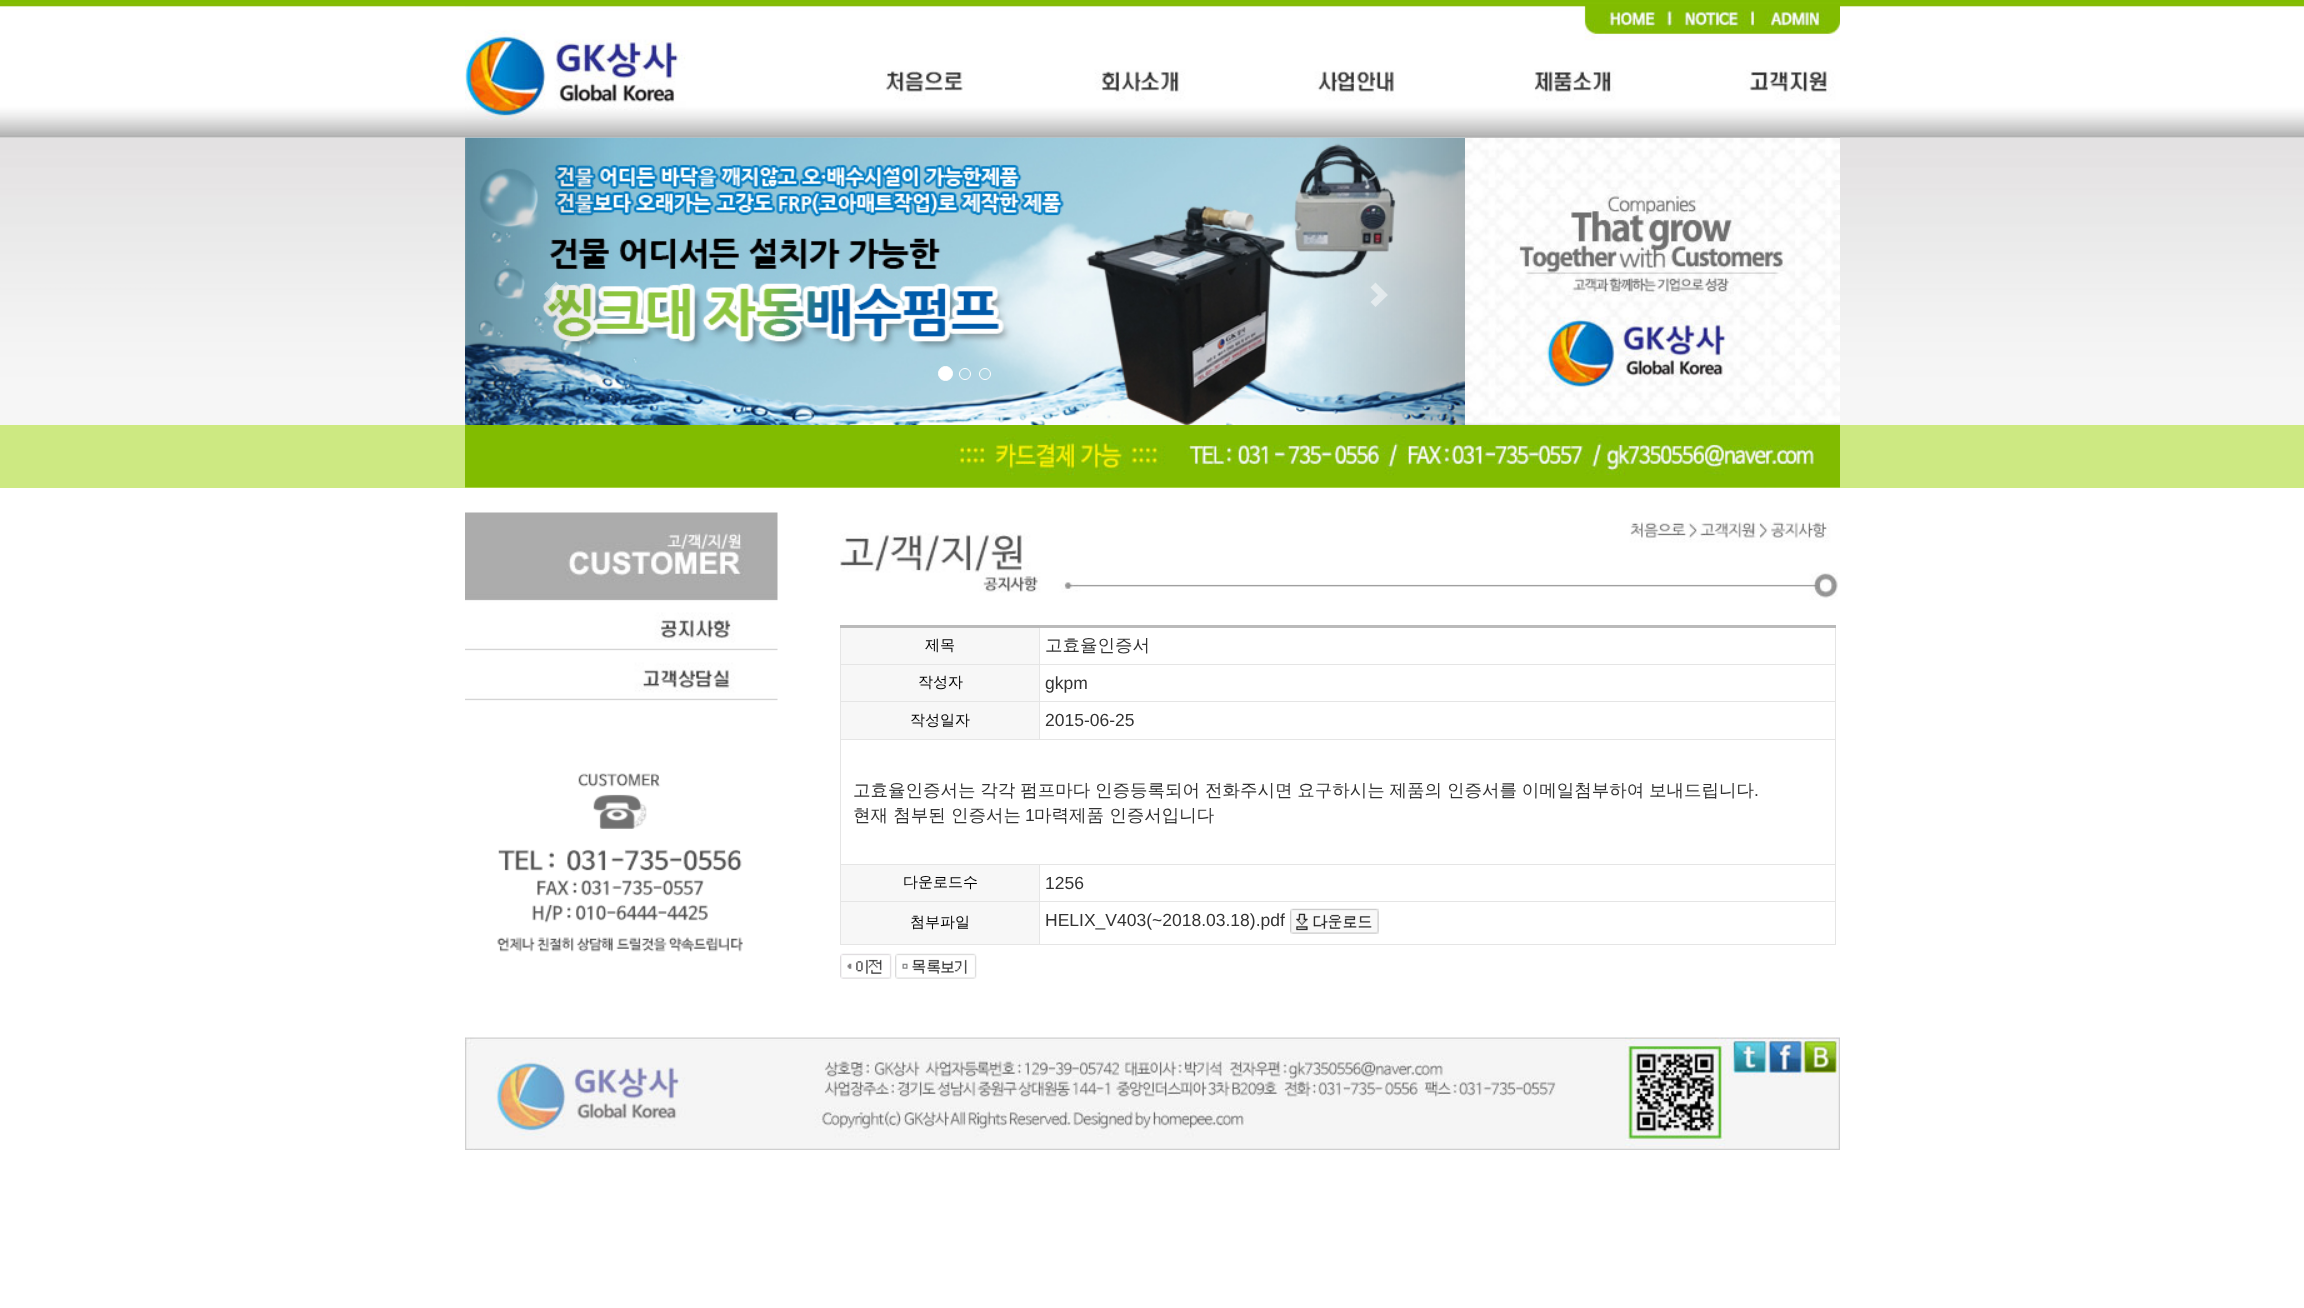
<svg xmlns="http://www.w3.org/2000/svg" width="2304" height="1308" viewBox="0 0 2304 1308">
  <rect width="100%" height="100%" fill="rgb(255,255,255)"/>
  <image x="0" y="137" width="2304" height="288" href="pic3.png"/>
  <image x="1465" y="137" width="375" height="288" href="pic5.png"/>
  <image x="0" y="0" width="2304" height="138" href="pic1.png"/>
  <image x="465" y="4" width="1375" height="134" href="pic2.png"/>
  <image x="465" y="137" width="1000" height="288" href="pic4.png"/>
  <path d="M544 294L556 306L561 301L554 294L561 286.5L556 281.5Z" fill="rgba(255,255,255,0.5)"/>
  <path d="M1370.5 302L1378 295L1370.5 287.5L1375.5 282.5L1388 295L1375.5 307Z" fill="rgba(255,255,255,0.5)"/>
  <circle cx="945.5" cy="373.5" r="7" fill="rgb(255,255,255)" stroke="rgb(255,255,255)"/>
  <circle cx="965" cy="374" r="5.5" fill="none" stroke="rgb(255,255,255)"/>
  <circle cx="985" cy="374" r="5.5" fill="none" stroke="rgb(255,255,255)"/>
  <rect x="0" y="425" width="2304" height="63" fill="rgb(205,233,130)"/>
  <image x="465" y="425" width="1375" height="63" href="pic6.png"/>
  <image x="465" y="512" width="313" height="189" href="pic7.png"/>
  <image x="497" y="773" width="246" height="179" href="pic8.png"/>
  <image x="840" y="522" width="998" height="78" href="pic9.png"/>
  <rect x="840" y="625" width="1" height="320" fill="rgb(229,229,229)"/>
  <rect x="1835" y="626" width="1" height="319" fill="rgb(229,229,229)"/>
  <rect x="1039" y="739" width="797" height="1" fill="rgb(229,229,229)"/>
  <rect x="1039" y="701" width="1" height="39" fill="rgb(229,229,229)"/>
  <rect x="1039" y="701" width="797" height="1" fill="rgb(229,229,229)"/>
  <rect x="1039" y="664" width="1" height="39" fill="rgb(229,229,229)"/>
  <rect x="1039" y="664" width="797" height="1" fill="rgb(229,229,229)"/>
  <rect x="1039" y="626" width="1" height="39" fill="rgb(229,229,229)"/>
  <rect x="840" y="625" width="996" height="3" fill="rgb(186,186,186)"/>
  <rect x="841" y="628" width="198" height="36" fill="rgb(247,247,247)"/>
  <rect x="840" y="664" width="200" height="1" fill="rgb(229,229,229)"/>
  <text x="925" y="650" font-family="WenQuanYi Zen Hei" font-size="15" font-weight="500" fill="rgb(0,0,0)">제목</text>
  <text x="1045" y="651" font-family="WenQuanYi Zen Hei" font-size="17.5" font-weight="500" fill="rgb(51,51,51)">고효율인증서</text>
  <rect x="841" y="665" width="198" height="74" fill="rgb(247,247,247)"/>
  <rect x="840" y="701" width="200" height="1" fill="rgb(229,229,229)"/>
  <text x="918" y="687" font-family="WenQuanYi Zen Hei" font-size="15" font-weight="500" fill="rgb(0,0,0)">작성자</text>
  <text x="1045" y="689" font-family="Liberation Sans" font-size="17.5" fill="rgb(51,51,51)">gkpm</text>
  <rect x="840" y="739" width="200" height="1" fill="rgb(229,229,229)"/>
  <text x="910" y="725" font-family="WenQuanYi Zen Hei" font-size="15" font-weight="500" fill="rgb(0,0,0)">작성일자</text>
  <text x="1045" y="726" font-family="Liberation Sans" font-size="17.5" fill="rgb(51,51,51)">2015-06-25</text>
  <rect x="1039" y="944" width="797" height="1" fill="rgb(229,229,229)"/>
  <rect x="1039" y="901" width="1" height="44" fill="rgb(229,229,229)"/>
  <rect x="1039" y="901" width="797" height="1" fill="rgb(229,229,229)"/>
  <rect x="1039" y="864" width="1" height="39" fill="rgb(229,229,229)"/>
  <rect x="840" y="864" width="996" height="1" fill="rgb(229,229,229)"/>
  <text x="853" y="796" word-spacing="-0.4" font-family="WenQuanYi Zen Hei" font-size="17.5" font-weight="500" fill="rgb(51,51,51)">고효율인증서는 각각 펌프마다 인증등록되어 전화주시면 요구하시는 제품의 인증서를 이메일첨부하여 보내드립니다</text>
  <text x="1754" y="796" font-family="Liberation Sans" font-size="17.5" fill="rgb(51,51,51)">.</text>
  <text x="853" y="821" font-family="WenQuanYi Zen Hei" font-size="17.5" font-weight="500" fill="rgb(51,51,51)">현재 첨부된 인증서는</text>
  <text x="1025" y="821" font-family="Liberation Sans" font-size="17.5" fill="rgb(51,51,51)">1</text>
  <text x="1034" y="821" font-family="WenQuanYi Zen Hei" font-size="17.5" font-weight="500" fill="rgb(51,51,51)">마력제품 인증서입니다</text>
  <rect x="841" y="865" width="198" height="79" fill="rgb(247,247,247)"/>
  <rect x="840" y="901" width="200" height="1" fill="rgb(229,229,229)"/>
  <text x="903" y="887" font-family="WenQuanYi Zen Hei" font-size="15" font-weight="500" fill="rgb(0,0,0)">다운로드수</text>
  <text x="1045" y="889" font-family="Liberation Sans" font-size="17.5" fill="rgb(51,51,51)">1256</text>
  <rect x="840" y="944" width="200" height="1" fill="rgb(229,229,229)"/>
  <text x="910" y="927" font-family="WenQuanYi Zen Hei" font-size="15" font-weight="500" fill="rgb(0,0,0)">첨부파일</text>
  <text x="1045" y="926" font-family="Liberation Sans" font-size="17.5" fill="rgb(51,51,51)">HELIX_V403(~2018.03.18).pdf</text>
  <image x="1290" y="908" width="89" height="26" href="pic10.png"/>
  <image x="840" y="953" width="52" height="26" href="pic11.png"/>
  <image x="895" y="953" width="82" height="26" href="pic12.png"/>
  <image x="465" y="1037" width="1375" height="113" href="pic13.png"/>
</svg>
